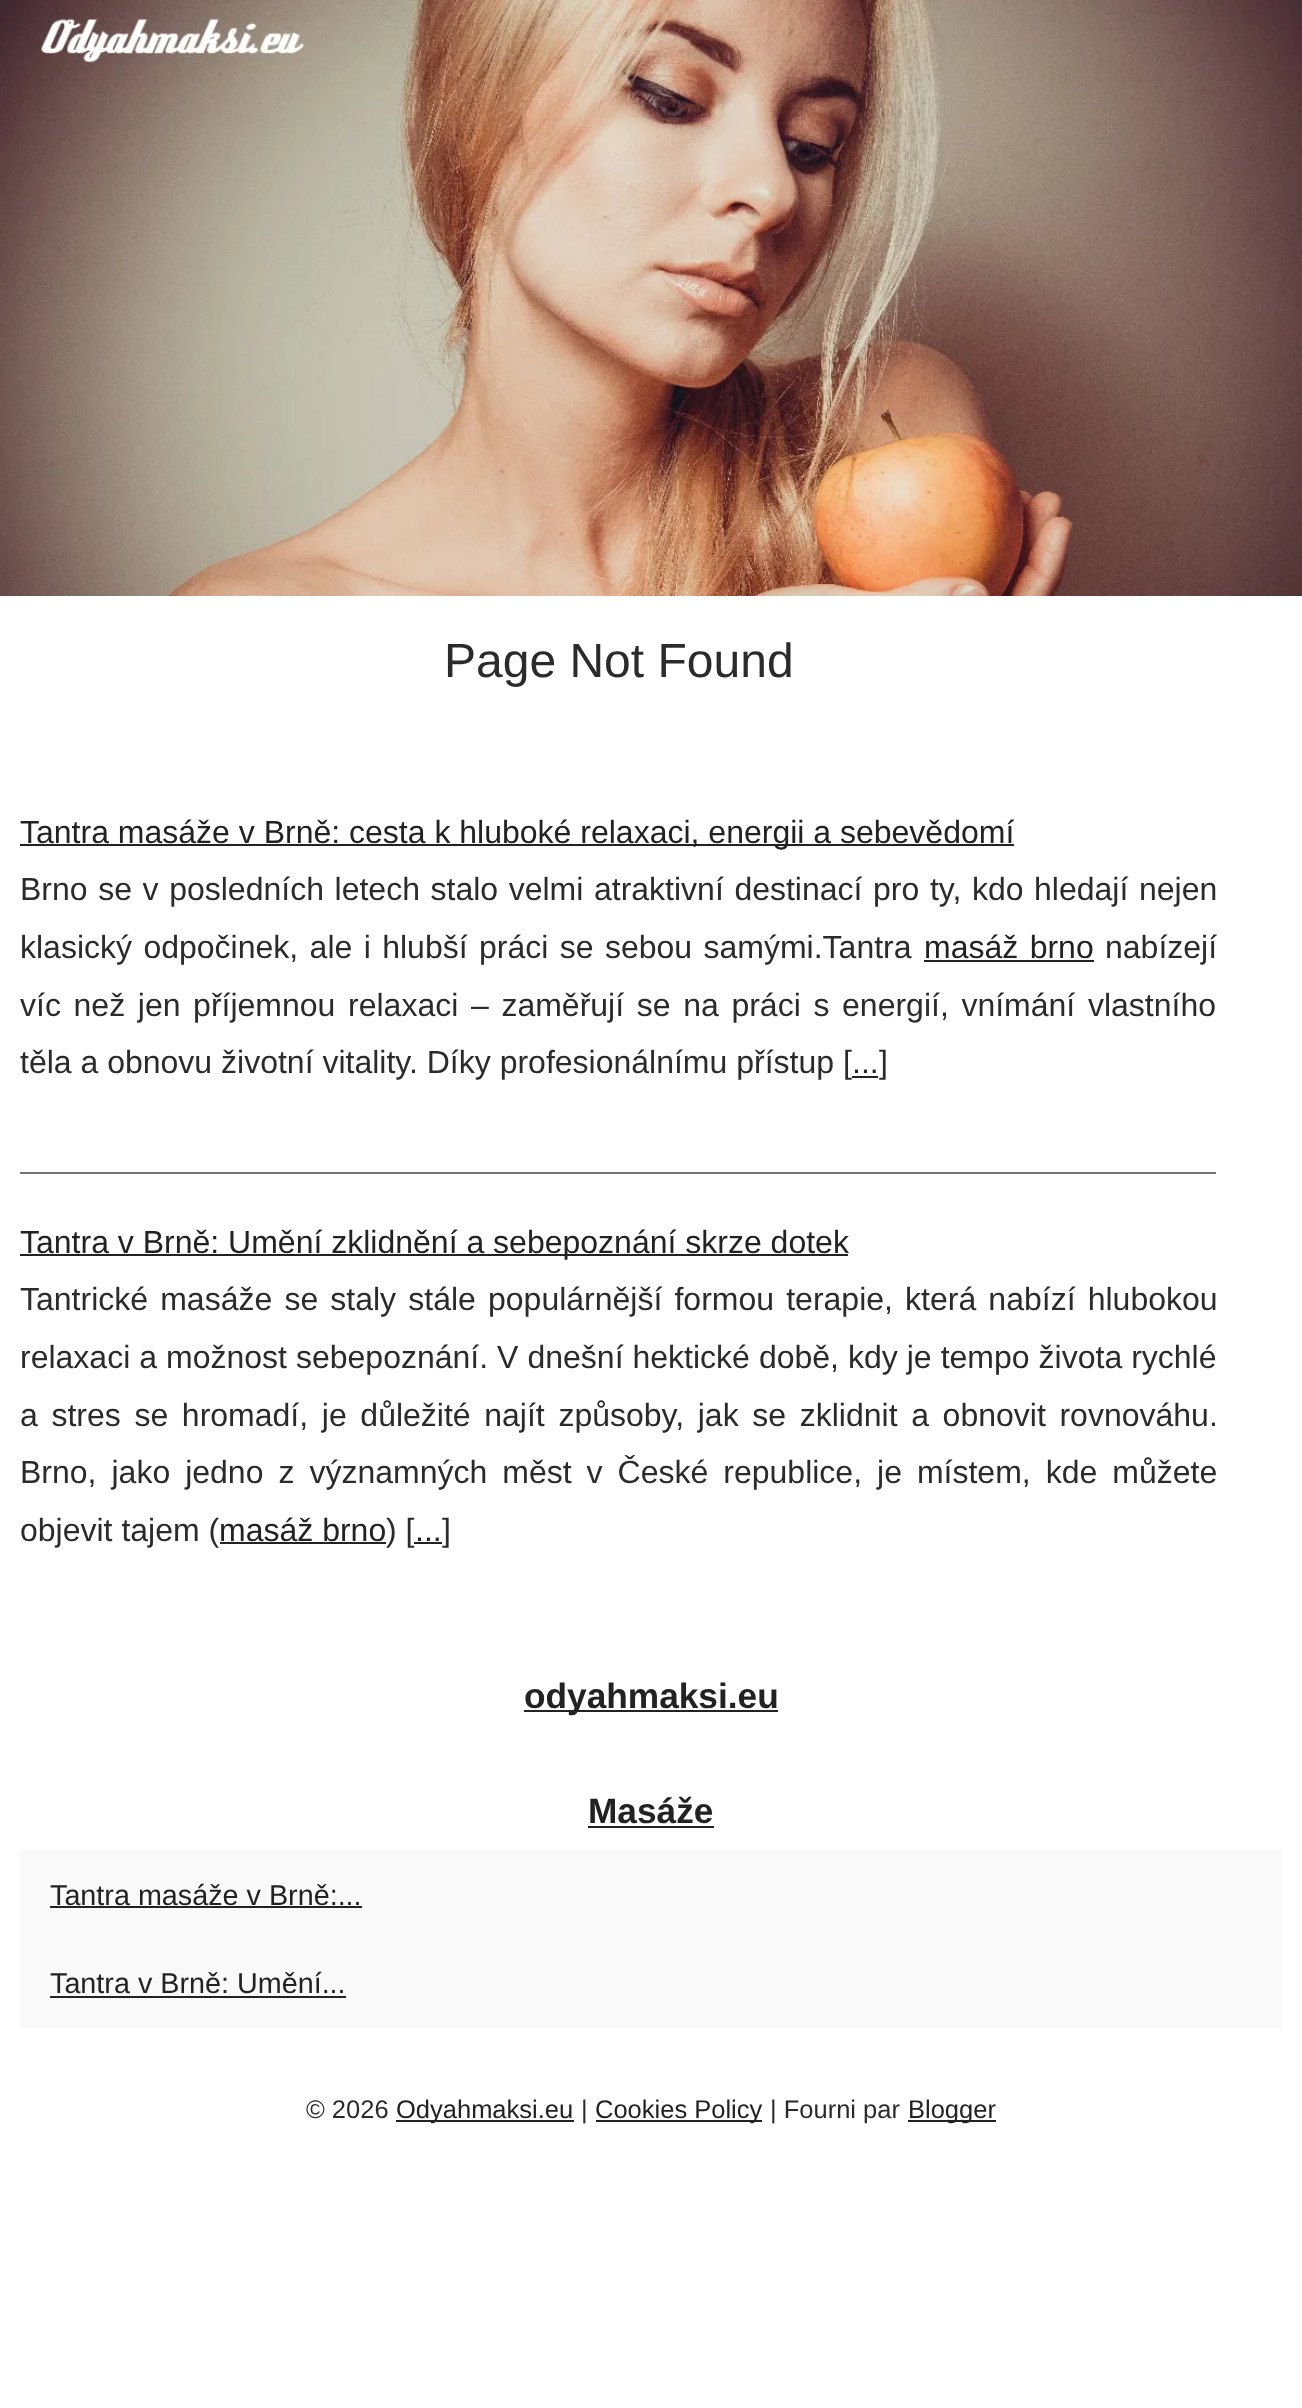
<svg xmlns="http://www.w3.org/2000/svg" width="1302" height="2408" viewBox="0 0 1302 2408">
  <rect width="100%" height="100%" fill="rgb(255,255,255)"/>
  <image x="0" y="0" width="1302" height="596" href="pic1.png"/>
  <text x="444" y="677" font-family="Liberation Sans" font-size="48" fill="rgb(43,43,43)">Page Not Found</text>
  <rect x="20" y="844" width="994" height="2" fill="rgb(34,34,34)"/>
  <text x="20" y="843" font-family="Liberation Sans" font-size="32" fill="rgb(34,34,34)">Tantra masáže v Brně: cesta k hluboké relaxaci, energii a sebevědomí</text>
  <g font-family="Liberation Sans" font-size="32" fill="rgb(43,43,43)">
    <text>
      <tspan x="20" y="900" word-spacing="1.7">Brno se v posledních letech stalo velmi atraktivní destinací pro ty, kdo hledají nejen</tspan>
      <tspan x="20" y="958" word-spacing="2.5">klasický odpočinek, ale i hlubší práci se sebou samými.Tantra</tspan>
    </text>
  </g>
  <text x="924" y="958" word-spacing="2.5" font-family="Liberation Sans" font-size="32" fill="rgb(34,34,34)">masáž brno</text>
  <rect x="924" y="960" width="170" height="2" fill="rgb(34,34,34)"/>
  <g font-family="Liberation Sans" font-size="32" fill="rgb(43,43,43)">
    <text x="1105" y="958">nabízejí</text>
    <text>
      <tspan x="20" y="1016" word-spacing="3.75">víc než jen příjemnou relaxaci – zaměřují se na práci s energií, vnímání vlastního</tspan>
      <tspan x="20" y="1073">těla a obnovu životní vitality. Díky profesionálnímu přístup [</tspan>
    </text>
  </g>
  <text x="852" y="1073" font-family="Liberation Sans" font-size="32" fill="rgb(34,34,34)">...</text>
  <rect x="852" y="1076" width="26" height="2" fill="rgb(34,34,34)"/>
  <text x="879" y="1073" font-family="Liberation Sans" font-size="32" fill="rgb(43,43,43)">]</text>
  <rect x="20" y="1172" width="1196" height="2" fill="rgb(117,117,117)"/>
  <rect x="20" y="1254" width="828" height="2" fill="rgb(34,34,34)"/>
  <text x="20" y="1253" font-family="Liberation Sans" font-size="32" fill="rgb(34,34,34)">Tantra v Brně: Umění zklidnění a sebepoznání skrze dotek</text>
  <g font-family="Liberation Sans" font-size="32" fill="rgb(43,43,43)">
    <text>
      <tspan x="20" y="1310" word-spacing="3.25">Tantrické masáže se staly stále populárnější formou terapie, která nabízí hlubokou</tspan>
      <tspan x="20" y="1368" word-spacing="0.1">relaxaci a možnost sebepoznání. V dnešní hektické době, kdy je tempo života rychlé</tspan>
      <tspan x="20" y="1426" word-spacing="4.75">a stres se hromadí, je důležité najít způsoby, jak se zklidnit a obnovit rovnováhu.</tspan>
      <tspan x="20" y="1483" word-spacing="6.1">Brno, jako jedno z významných měst v České republice, je místem, kde můžete</tspan>
      <tspan x="20" y="1541">objevit tajem (</tspan>
    </text>
  </g>
  <text x="219" y="1541" font-family="Liberation Sans" font-size="32" fill="rgb(34,34,34)">masáž brno</text>
  <rect x="220" y="1542" width="166" height="2" fill="rgb(34,34,34)"/>
  <text x="386" y="1541" font-family="Liberation Sans" font-size="32" fill="rgb(43,43,43)">) [</text>
  <text x="415" y="1541" font-family="Liberation Sans" font-size="32" fill="rgb(34,34,34)">...</text>
  <rect x="414" y="1542" width="28" height="2" fill="rgb(34,34,34)"/>
  <text x="442" y="1541" font-family="Liberation Sans" font-size="32" fill="rgb(43,43,43)">]</text>
  <rect x="524" y="1710" width="254" height="2" fill="rgb(34,34,34)"/>
  <g font-family="Liberation Sans" font-size="35.25" font-weight="bold" fill="rgb(34,34,34)">
    <text x="524" y="1708">odyahmaksi.eu</text>
    <text x="588" y="1823">Masáže</text>
  </g>
  <rect x="588" y="1826" width="126" height="2" fill="rgb(34,34,34)"/>
  <rect x="20" y="1850" width="1262" height="178" fill="rgb(249,249,249)"/>
  <text x="50" y="1905" font-family="Liberation Sans" font-size="28.75" fill="rgb(34,34,34)">Tantra masáže v Brně:...</text>
  <rect x="50" y="1906" width="312" height="2" fill="rgb(34,34,34)"/>
  <text x="50" y="1993" font-family="Liberation Sans" font-size="28.75" fill="rgb(34,34,34)">Tantra v Brně: Umění...</text>
  <rect x="50" y="1996" width="296" height="2" fill="rgb(34,34,34)"/>
  <text x="306" y="2118" font-family="Liberation Sans" font-size="25.5" fill="rgb(43,43,43)">© 2026</text>
  <rect x="396" y="2120" width="178" height="2" fill="rgb(34,34,34)"/>
  <text x="396" y="2118" font-family="Liberation Sans" font-size="25.5" fill="rgb(34,34,34)">Odyahmaksi.eu</text>
  <text x="581" y="2118" font-family="Liberation Sans" font-size="25.5" fill="rgb(43,43,43)">|</text>
  <rect x="596" y="2120" width="166" height="2" fill="rgb(34,34,34)"/>
  <text x="595" y="2118" font-family="Liberation Sans" font-size="25.5" fill="rgb(34,34,34)">Cookies Policy</text>
  <text x="770" y="2118" font-family="Liberation Sans" font-size="25.5" fill="rgb(43,43,43)">| Fourni par</text>
  <rect x="908" y="2120" width="88" height="2" fill="rgb(34,34,34)"/>
  <text x="908" y="2118" font-family="Liberation Sans" font-size="25.5" fill="rgb(34,34,34)">Blogger</text>
</svg>
